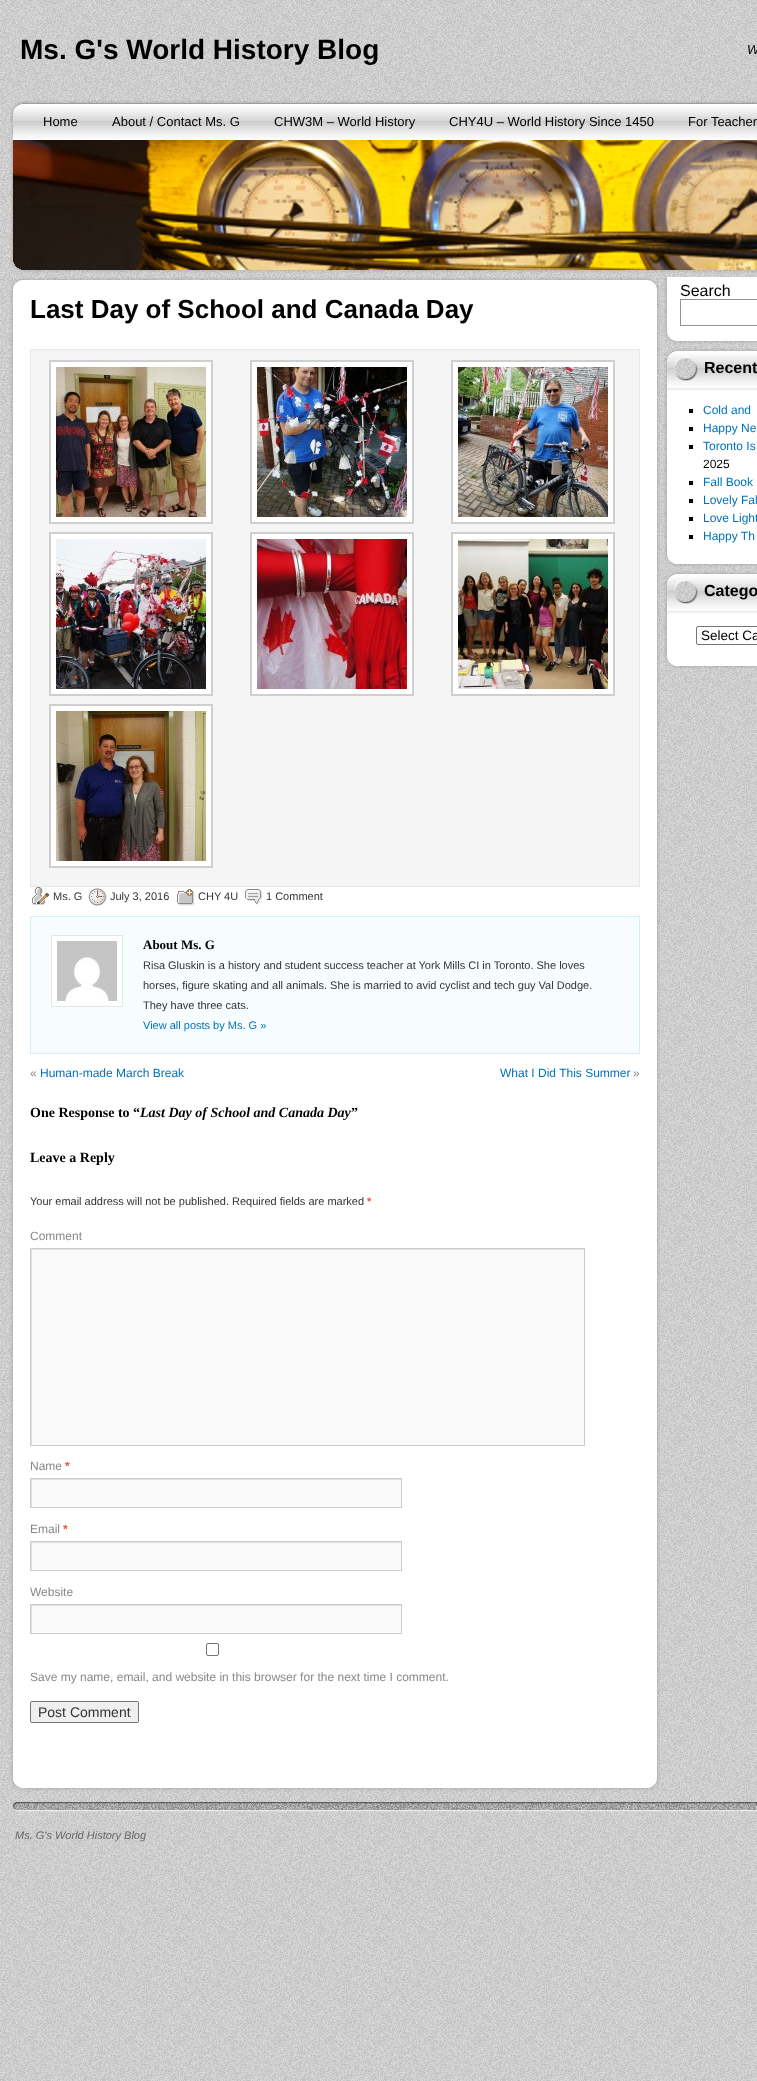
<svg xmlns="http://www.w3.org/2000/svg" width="757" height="2081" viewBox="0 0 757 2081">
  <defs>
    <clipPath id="clip1"><rect x="31" y="1249" width="553" height="196"/></clipPath>
    <clipPath id="clip2"><rect x="31" y="1479" width="370" height="28"/></clipPath>
    <clipPath id="clip3"><rect x="31" y="1542" width="370" height="28"/></clipPath>
    <clipPath id="clip4"><rect x="31" y="1605" width="370" height="28"/></clipPath>
  </defs>
  <rect width="100%" height="100%" fill="rgb(255,255,255)"/>
  <image x="0" y="0" width="757" height="2081" href="pic1.png"/>
  <text x="20" y="59" font-family="Liberation Sans" font-size="28" font-weight="bold" fill="rgb(0,0,0)">Ms. G's World History Blog</text>
  <text x="747" y="54" font-family="Liberation Sans" font-size="13" font-style="italic" fill="rgb(0,0,0)">W</text>
  <image x="10" y="100" width="747" height="40" href="pic2.png"/>
  <g font-family="Liberation Sans" font-size="13" fill="rgb(0,0,0)">
    <text x="43" y="126">Home</text>
    <text x="112" y="126">About / Contact Ms. G</text>
    <text x="274" y="126">CHW3M – World History</text>
    <text x="449" y="126">CHY4U – World History Since 1450</text>
    <text x="688" y="126">For Teacher</text>
  </g>
  <image x="10" y="140" width="3" height="122" href="pic3.png"/>
  <image x="13" y="140" width="744" height="130" href="pic4.png"/>
  <image x="10" y="262" width="11" height="8" href="pic5.png"/>
  <image x="10" y="270" width="747" height="3" href="pic6.png"/>
  <image x="10" y="290" width="650" height="1489" href="pic7.png"/>
  <image x="10" y="277" width="650" height="13" href="pic8.png"/>
  <text x="30" y="318" font-family="Liberation Sans" font-size="26" font-weight="bold" fill="rgb(0,0,0)">Last Day of School and Canada Day</text>
  <rect x="30.5" y="349.5" width="609" height="537" fill="rgb(245,245,245)" stroke="rgb(231,231,231)"/>
  <rect x="50" y="361" width="162" height="162" fill="rgb(255,255,255)" stroke="rgb(207,207,207)" stroke-width="2"/>
  <image x="56" y="367" width="150" height="150" href="pic9.png"/>
  <rect x="251" y="361" width="162" height="162" fill="rgb(255,255,255)" stroke="rgb(207,207,207)" stroke-width="2"/>
  <image x="257" y="367" width="150" height="150" href="pic10.png"/>
  <rect x="452" y="361" width="162" height="162" fill="rgb(255,255,255)" stroke="rgb(207,207,207)" stroke-width="2"/>
  <image x="458" y="367" width="150" height="150" href="pic11.png"/>
  <rect x="50" y="533" width="162" height="162" fill="rgb(255,255,255)" stroke="rgb(207,207,207)" stroke-width="2"/>
  <image x="56" y="539" width="150" height="150" href="pic12.png"/>
  <rect x="251" y="533" width="162" height="162" fill="rgb(255,255,255)" stroke="rgb(207,207,207)" stroke-width="2"/>
  <image x="257" y="539" width="150" height="150" href="pic13.png"/>
  <rect x="452" y="533" width="162" height="162" fill="rgb(255,255,255)" stroke="rgb(207,207,207)" stroke-width="2"/>
  <image x="458" y="539" width="150" height="150" href="pic14.png"/>
  <rect x="50" y="705" width="162" height="162" fill="rgb(255,255,255)" stroke="rgb(207,207,207)" stroke-width="2"/>
  <image x="56" y="711" width="150" height="150" href="pic15.png"/>
  <image x="32" y="887" width="18" height="18" href="pic16.png"/>
  <text x="53" y="900" font-family="Liberation Sans" font-size="11" fill="rgb(51,51,51)">Ms. G</text>
  <image x="88" y="888" width="19" height="18" href="pic17.png"/>
  <text x="110" y="900" font-family="Liberation Sans" font-size="11" fill="rgb(51,51,51)">July 3, 2016</text>
  <image x="177" y="889" width="18" height="17" href="pic18.png"/>
  <text x="198" y="900" font-family="Liberation Sans" font-size="11" fill="rgb(51,51,51)">CHY 4U</text>
  <image x="245" y="889" width="17" height="16" href="pic19.png"/>
  <text x="266" y="900" font-family="Liberation Sans" font-size="11" fill="rgb(51,51,51)">1 Comment</text>
  <rect x="30.5" y="916.5" width="609" height="137" fill="rgb(247,252,254)" stroke="rgb(214,238,247)"/>
  <rect x="51.5" y="935.5" width="71" height="71" fill="rgb(255,255,255)" stroke="rgb(231,231,231)"/>
  <image x="57" y="941" width="60" height="60" href="pic20.png"/>
  <text x="143" y="949" font-family="Liberation Serif" font-size="13" font-weight="bold" fill="rgb(0,0,0)">About Ms. G</text>
  <g font-family="Liberation Sans" font-size="11" fill="rgb(51,51,51)">
    <text>
      <tspan x="143" y="969">Risa Gluskin is a history and student success teacher at York Mills CI in Toronto. She loves</tspan>
      <tspan x="143" y="989">horses, figure skating and all animals. She is married to avid cyclist and tech guy Val Dodge.</tspan>
      <tspan x="143" y="1009">They have three cats.</tspan>
    </text>
  </g>
  <text x="143" y="1029" font-family="Liberation Sans" font-size="11" fill="rgb(0,114,188)">View all posts by Ms. G »</text>
  <text x="30" y="1077" font-family="Liberation Sans" font-size="12" fill="rgb(136,136,136)">«</text>
  <g font-family="Liberation Sans" font-size="12" fill="rgb(0,114,188)">
    <text x="40" y="1077">Human-made March Break</text>
    <text x="500" y="1077">What I Did This Summer</text>
  </g>
  <text x="633" y="1077" font-family="Liberation Sans" font-size="12" fill="rgb(136,136,136)">»</text>
  <text x="30" y="1117" font-family="Liberation Serif" font-size="14" font-weight="bold" fill="rgb(0,0,0)">One Response to “</text>
  <text x="140" y="1117" font-family="Liberation Serif" font-size="14" font-weight="bold" font-style="italic" fill="rgb(0,0,0)">Last Day of School and Canada Day</text>
  <g font-family="Liberation Serif" font-size="14" font-weight="bold" fill="rgb(0,0,0)">
    <text x="351" y="1117">”</text>
    <text x="30" y="1162">Leave a Reply</text>
  </g>
  <text x="30" y="1205" font-family="Liberation Sans" font-size="11" fill="rgb(51,51,51)">Your email address will not be published. Required fields are marked</text>
  <text x="367" y="1205" font-family="Liberation Sans" font-size="11" font-weight="bold" fill="rgb(255,75,51)">*</text>
  <text x="30" y="1240" font-family="Liberation Sans" font-size="12" fill="rgb(136,136,136)">Comment</text>
  <rect x="32" y="1250" width="552" height="195" fill="rgb(250,250,250)"/>
  <g clip-path="url(#clip1)">
    <path d="M-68 1150H683V1544H-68ZM32 1250H585V1446H32Z" fill="rgb(225,225,225)" fill-rule="evenodd"/>
  </g>
  <rect x="30.5" y="1248.5" width="554" height="197" fill="none" stroke="rgb(204,204,204)"/>
  <text x="30" y="1470" font-family="Liberation Sans" font-size="12" fill="rgb(136,136,136)">Name</text>
  <text x="65" y="1470" font-family="Liberation Sans" font-size="12" font-weight="bold" fill="rgb(255,75,51)">*</text>
  <rect x="32" y="1480" width="369" height="27" fill="rgb(250,250,250)"/>
  <g clip-path="url(#clip2)">
    <path d="M-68 1380H500V1606H-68ZM32 1480H402V1508H32Z" fill="rgb(225,225,225)" fill-rule="evenodd"/>
  </g>
  <rect x="30.5" y="1478.5" width="371" height="29" fill="none" stroke="rgb(204,204,204)"/>
  <text x="30" y="1533" font-family="Liberation Sans" font-size="12" fill="rgb(136,136,136)">Email</text>
  <text x="63" y="1533" font-family="Liberation Sans" font-size="12" font-weight="bold" fill="rgb(255,75,51)">*</text>
  <rect x="32" y="1543" width="369" height="27" fill="rgb(250,250,250)"/>
  <g clip-path="url(#clip3)">
    <path d="M-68 1443H500V1669H-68ZM32 1543H402V1571H32Z" fill="rgb(225,225,225)" fill-rule="evenodd"/>
  </g>
  <rect x="30.5" y="1541.5" width="371" height="29" fill="none" stroke="rgb(204,204,204)"/>
  <text x="30" y="1596" font-family="Liberation Sans" font-size="12" fill="rgb(136,136,136)">Website</text>
  <rect x="32" y="1606" width="369" height="27" fill="rgb(250,250,250)"/>
  <g clip-path="url(#clip4)">
    <path d="M-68 1506H500V1732H-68ZM32 1606H402V1634H32Z" fill="rgb(225,225,225)" fill-rule="evenodd"/>
  </g>
  <rect x="30.5" y="1604.5" width="371" height="29" fill="none" stroke="rgb(204,204,204)"/>
  <rect x="206.5" y="1643.5" width="12" height="12" rx="1.5" fill="none" stroke="rgb(118,118,118)"/>
  <text x="30" y="1681" font-family="Liberation Sans" font-size="12" fill="rgb(136,136,136)">Save my name, email, and website in this browser for the next time I comment.</text>
  <rect x="30.5" y="1701.5" width="108" height="21" rx="1.5" fill="rgb(239,239,239)" stroke="rgb(118,118,118)"/>
  <text x="38" y="1717" font-family="Liberation Sans" font-size="14" fill="rgb(51,51,51)">Post Comment</text>
  <image x="10" y="1779" width="650" height="13" href="pic21.png"/>
  <image x="664" y="277" width="93" height="55" href="pic22.png"/>
  <text x="680" y="296" font-family="Liberation Sans" font-size="16" fill="rgb(0,0,0)">Search</text>
  <rect x="680.5" y="299.5" width="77" height="26" fill="none" stroke="rgb(148,148,148)"/>
  <image x="664" y="332" width="93" height="12" href="pic23.png"/>
  <image x="664" y="391" width="93" height="164" href="pic24.png"/>
  <image x="664" y="348" width="93" height="43" href="pic25.png"/>
  <text x="704" y="373" font-family="Liberation Sans" font-size="16" font-weight="bold" fill="rgb(0,0,0)">Recent</text>
  <rect x="689" y="409" width="4" height="4" fill="rgb(0,0,0)"/>
  <text x="703" y="414" font-family="Liberation Sans" font-size="12" fill="rgb(0,114,188)">Cold and</text>
  <rect x="689" y="427" width="4" height="4" fill="rgb(0,0,0)"/>
  <text x="703" y="432" font-family="Liberation Sans" font-size="12" fill="rgb(0,114,188)">Happy Ne</text>
  <rect x="689" y="445" width="4" height="4" fill="rgb(0,0,0)"/>
  <text x="703" y="450" font-family="Liberation Sans" font-size="12" fill="rgb(0,114,188)">Toronto Is</text>
  <text x="703" y="468" font-family="Liberation Sans" font-size="12" fill="rgb(0,0,0)">2025</text>
  <rect x="689" y="481" width="4" height="4" fill="rgb(0,0,0)"/>
  <text x="703" y="486" font-family="Liberation Sans" font-size="12" fill="rgb(0,114,188)">Fall Book</text>
  <rect x="689" y="499" width="4" height="4" fill="rgb(0,0,0)"/>
  <text x="703" y="504" font-family="Liberation Sans" font-size="12" fill="rgb(0,114,188)">Lovely Fal</text>
  <rect x="689" y="517" width="4" height="4" fill="rgb(0,0,0)"/>
  <text x="703" y="522" font-family="Liberation Sans" font-size="12" fill="rgb(0,114,188)">Love Light</text>
  <rect x="689" y="535" width="4" height="4" fill="rgb(0,0,0)"/>
  <text x="703" y="540" font-family="Liberation Sans" font-size="12" fill="rgb(0,114,188)">Happy Th</text>
  <image x="664" y="555" width="93" height="12" href="pic23.png"/>
  <image x="664" y="614" width="93" height="43" href="pic26.png"/>
  <image x="664" y="571" width="93" height="43" href="pic25.png"/>
  <text x="704" y="596" font-family="Liberation Sans" font-size="16" font-weight="bold" fill="rgb(0,0,0)">Catego</text>
  <rect x="696.5" y="626.5" width="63" height="18" rx="1.5" fill="none" stroke="rgb(118,118,118)"/>
  <text x="701" y="640" font-family="Liberation Sans" font-size="13.5" fill="rgb(0,0,0)">Select Ca</text>
  <image x="664" y="657" width="93" height="12" href="pic23.png"/>
  <image x="10" y="1802" width="747" height="10" href="pic27.png"/>
  <text x="15" y="1839" font-family="Liberation Sans" font-size="11" font-style="italic" fill="rgb(102,102,102)">Ms. G's World History Blog</text>
</svg>
